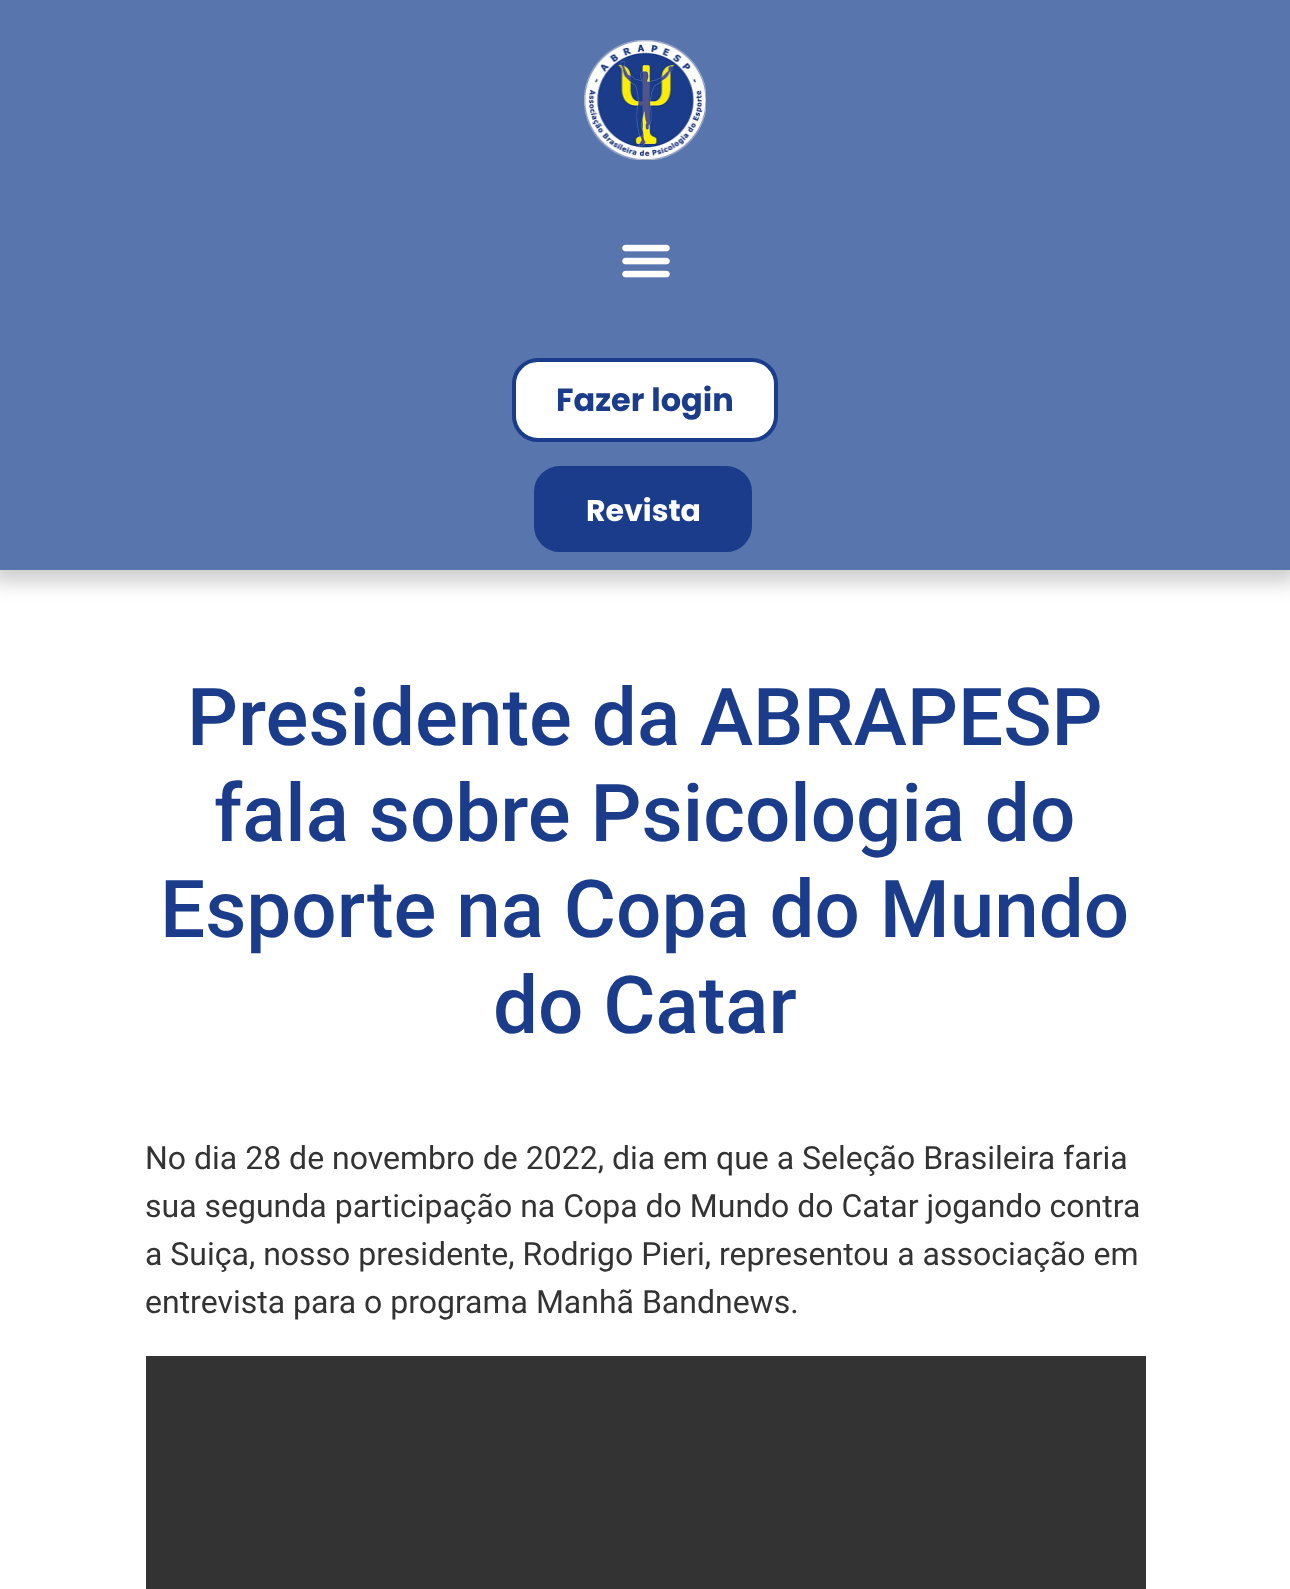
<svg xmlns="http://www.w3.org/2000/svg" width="1290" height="1589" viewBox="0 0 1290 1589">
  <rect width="100%" height="100%" fill="rgb(255,255,255)"/>
  <rect x="-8" y="-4" width="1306" height="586" fill="rgba(0,0,0,0.2)" filter="blur(10px)"/>
  <rect x="0" y="0" width="1290" height="570" fill="rgb(88,117,174)"/>
  <image x="584" y="40" width="122" height="120" href="pic1.png"/>
  <image x="622" y="244" width="48" height="34" href="pic2.png"/>
  <rect x="514" y="360" width="262" height="80" rx="24" fill="rgb(255,255,255)" stroke="rgb(27,60,138)" stroke-width="4"/>
  <text x="556" y="411" font-family="Poppins" font-size="32" font-weight="bold" fill="rgb(26,60,138)">Fazer login</text>
  <rect x="536" y="468" width="214" height="82" rx="24" fill="rgb(27,60,138)" stroke="rgb(27,60,138)" stroke-width="4"/>
  <text x="586" y="521" font-family="Poppins" font-size="30" font-weight="bold" fill="rgb(255,255,255)">Revista</text>
  <g font-family="Roboto" font-size="80" font-weight="500" fill="rgb(26,60,138)">
    <text x="187" y="745">Presidente da ABRAPESP</text>
    <text x="214" y="841">fala sobre Psicologia do</text>
    <text x="160" y="937">Esporte na Copa do Mundo</text>
    <text x="493" y="1033">do Catar</text>
  </g>
  <g font-family="Roboto" font-size="32" fill="rgb(51,51,51)">
    <text>
      <tspan x="145" y="1169">No dia 28 de novembro de 2022, dia em que a Seleção Brasileira faria</tspan>
      <tspan x="145" y="1217">sua segunda participação na Copa do Mundo do Catar jogando contra</tspan>
      <tspan x="145" y="1265">a Suiça, nosso presidente, Rodrigo Pieri, representou a associação em</tspan>
      <tspan x="145" y="1313">entrevista para o programa Manhã Bandnews.</tspan>
    </text>
  </g>
  <rect x="146" y="1356" width="1000" height="233" fill="rgb(51,51,51)"/>
</svg>
